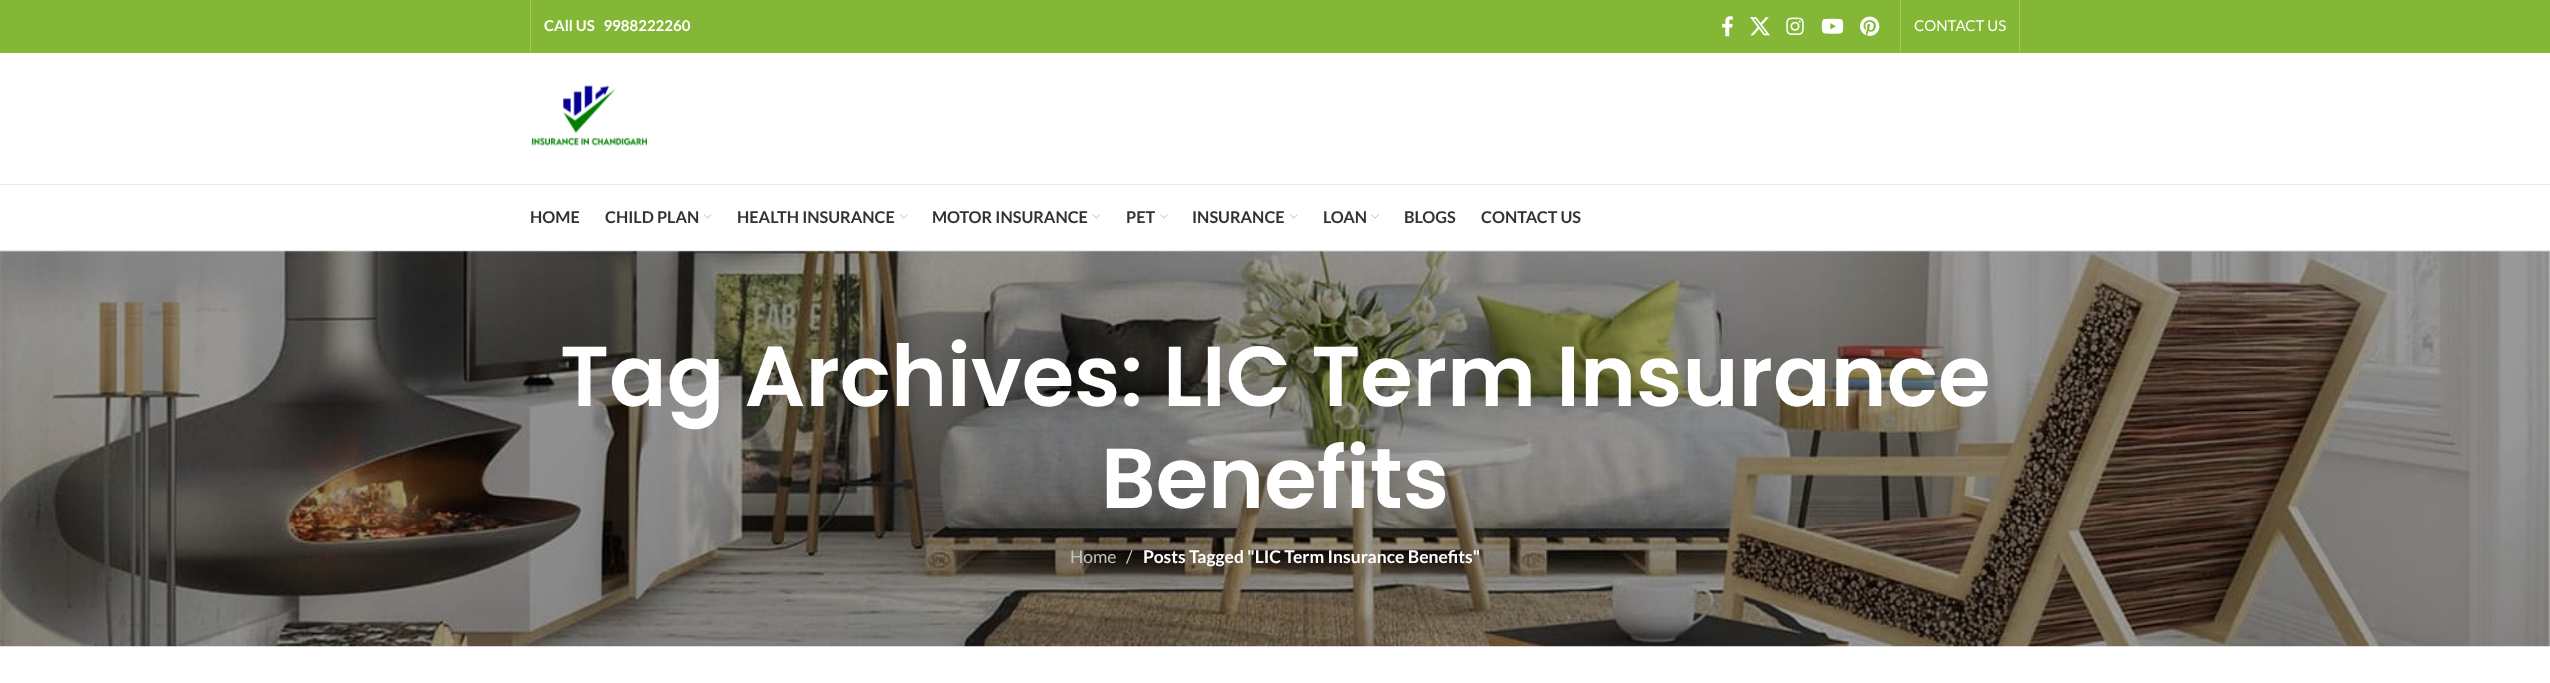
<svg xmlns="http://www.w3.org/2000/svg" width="2550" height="683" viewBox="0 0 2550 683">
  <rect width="100%" height="100%" fill="rgb(255,255,255)"/>
  <rect x="0" y="0" width="2550" height="53" fill="rgb(131,183,53)"/>
  <rect x="530" y="0" width="1" height="53" fill="rgb(162,201,104)"/>
  <text x="544" y="31" font-family="Lato" font-size="15" font-weight="bold" fill="rgb(255,255,255)" xml:space="preserve">CAll US   9988222260</text>
  <image x="1722" y="16" width="11" height="21" href="pic1.png"/>
  <image x="1750" y="17" width="20" height="19" href="pic2.png"/>
  <image x="1786" y="17" width="18" height="18" href="pic3.png"/>
  <image x="1821" y="18" width="23" height="16" href="pic4.png"/>
  <image x="1860" y="16" width="20" height="20" href="pic5.png"/>
  <rect x="1900" y="0" width="1" height="53" fill="rgb(162,201,104)"/>
  <text x="1914" y="31" font-family="Lato" font-size="15" fill="rgb(255,255,255)">CONTACT US</text>
  <rect x="2019" y="0" width="1" height="53" fill="rgb(162,201,104)"/>
  <rect x="0" y="184" width="2550" height="1" fill="rgb(232,232,232)"/>
  <image x="531" y="85" width="116" height="61" href="pic6.png"/>
  <rect x="0" y="250" width="2550" height="1" fill="rgb(232,232,232)"/>
  <g font-family="Lato" font-size="16.25" font-weight="bold" fill="rgb(51,51,51)">
    <text x="530" y="223">HOME</text>
    <text x="605" y="223">CHILD PLAN</text>
  </g>
  <image x="704" y="214" width="8" height="5" href="pic7.png"/>
  <text x="737" y="223" font-family="Lato" font-size="16.25" font-weight="bold" fill="rgb(51,51,51)">HEALTH INSURANCE</text>
  <image x="900" y="214" width="8" height="5" href="pic8.png"/>
  <text x="932" y="223" font-family="Lato" font-size="16.25" font-weight="bold" fill="rgb(51,51,51)">MOTOR INSURANCE</text>
  <image x="1092" y="214" width="8" height="5" href="pic9.png"/>
  <text x="1126" y="223" font-family="Lato" font-size="16.25" font-weight="bold" fill="rgb(51,51,51)">PET</text>
  <image x="1160" y="214" width="8" height="5" href="pic8.png"/>
  <text x="1192" y="223" font-family="Lato" font-size="16.25" font-weight="bold" fill="rgb(51,51,51)">INSURANCE</text>
  <image x="1290" y="214" width="8" height="5" href="pic8.png"/>
  <text x="1323" y="223" font-family="Lato" font-size="16.25" font-weight="bold" fill="rgb(51,51,51)">LOAN</text>
  <image x="1371" y="214" width="8" height="5" href="pic10.png"/>
  <g font-family="Lato" font-size="16.25" font-weight="bold" fill="rgb(51,51,51)">
    <text x="1404" y="223">BLOGS</text>
    <text x="1481" y="223">CONTACT US</text>
  </g>
  <image x="0" y="251" width="2550" height="396" href="pic11.png"/>
  <g font-family="Poppins" font-size="85" font-weight="600" fill="rgb(255,255,255)">
    <text x="560" y="406">Tag Archives: LIC Term Insurance</text>
    <text x="1101" y="508">Benefits</text>
  </g>
  <text x="1070" y="563" font-family="Lato" font-size="17.5" fill="rgb(196,194,191)">Home</text>
  <text x="1126" y="563" font-family="Lato" font-size="17.5" fill="rgb(208,208,207)">/</text>
  <text x="1143" y="563" font-family="Lato" font-size="17.5" font-weight="bold" fill="rgb(255,255,255)">Posts Tagged "LIC Term Insurance Benefits"</text>
</svg>
